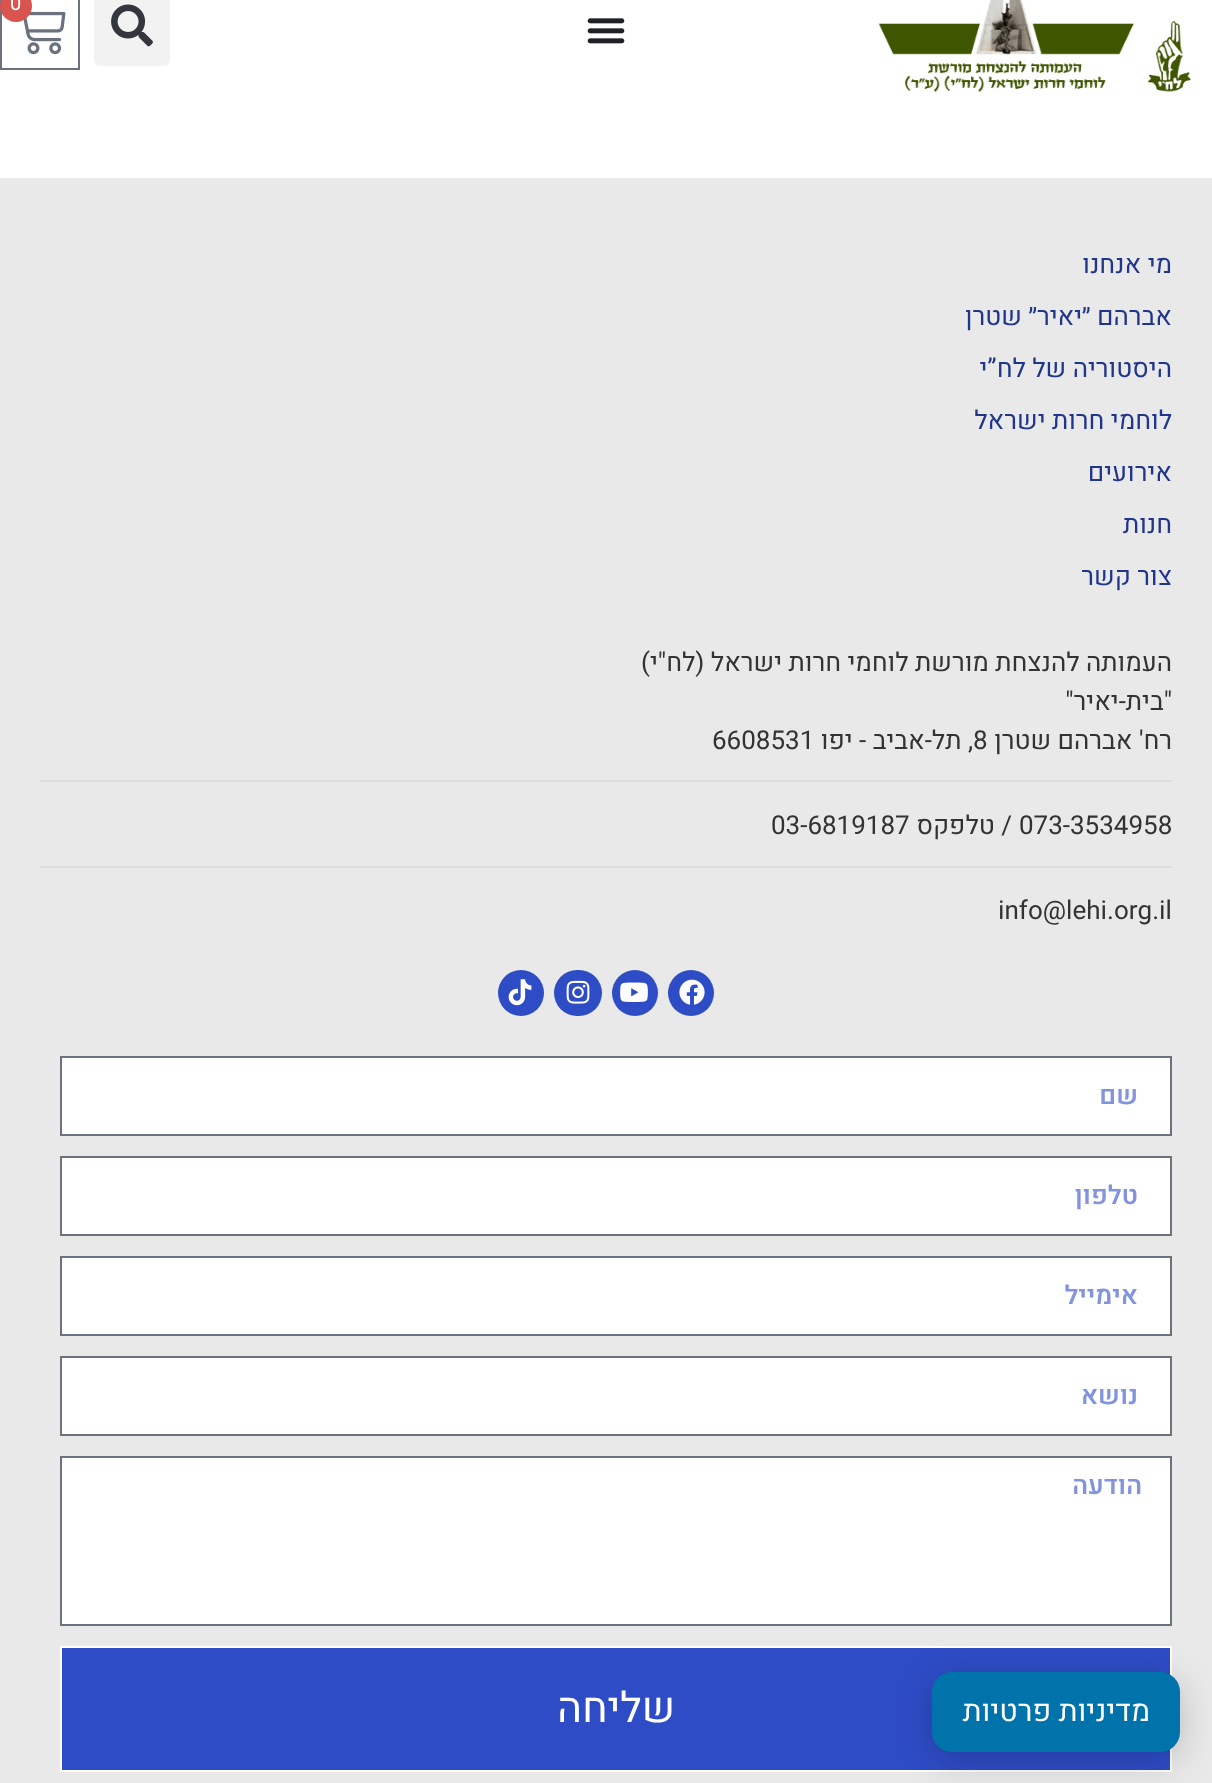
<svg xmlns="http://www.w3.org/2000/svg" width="1212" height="1783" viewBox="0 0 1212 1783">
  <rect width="100%" height="100%" fill="rgb(255,255,255)"/>
  <image x="878" y="0" width="313" height="92" href="pic1.png"/>
  <image x="587" y="18" width="38" height="26" href="pic2.png"/>
  <rect x="94" y="-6" width="76" height="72" rx="6" fill="rgb(242,242,242)"/>
  <image x="111" y="4" width="42" height="43" href="pic3.png"/>
  <rect x="1" y="-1" width="78" height="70" fill="none" stroke="rgb(105,114,125)" stroke-width="2"/>
  <image x="23" y="11" width="43" height="44" href="pic4.png"/>
  <circle cx="16" cy="6" r="16" fill="rgb(217,83,79)"/>
  <text x="10" y="10" font-family="Heebo" font-size="20" fill="rgb(255,255,255)">0</text>
  <rect x="0" y="178" width="1212" height="1605" fill="rgb(233,233,233)"/>
  <g font-family="Heebo" font-size="26" direction="rtl" fill="rgb(32,54,139)">
    <text x="1172" y="273">מי אנחנו</text>
    <text x="1172" y="325">אברהם ״יאיר״ שטרן</text>
    <text x="1172" y="377">היסטוריה של לח”י</text>
    <text x="1172" y="429">לוחמי חרות ישראל</text>
    <text x="1172" y="481">אירועים</text>
    <text x="1172" y="533">חנות</text>
    <text x="1172" y="585">צור קשר</text>
  </g>
  <g font-family="Heebo" font-size="26" direction="rtl" fill="rgb(51,51,51)">
    <text>
      <tspan x="1172" y="671">העמותה להנצחת מורשת לוחמי חרות ישראל (לח"י)</tspan>
      <tspan x="1172" y="710">"בית-יאיר"</tspan>
      <tspan x="1172" y="749">רח' אברהם שטרן</tspan>
    </text>
  </g>
  <text x="973" y="749" font-family="Heebo" font-size="26" fill="rgb(51,51,51)">8</text>
  <text x="973" y="749" font-family="Heebo" font-size="26" direction="rtl" fill="rgb(51,51,51)">, תל-אביב - יפו</text>
  <text x="712" y="749" font-family="Heebo" font-size="26" fill="rgb(51,51,51)">6608531</text>
  <rect x="40" y="780" width="1132" height="2" fill="rgb(221,221,221)"/>
  <text x="1019" y="834" font-family="Heebo" font-size="26" fill="rgb(51,51,51)">073-3534958</text>
  <text x="1012" y="834" font-family="Heebo" font-size="26" direction="rtl" fill="rgb(51,51,51)">/ טלפקס</text>
  <text x="771" y="834" font-family="Heebo" font-size="26" fill="rgb(51,51,51)">03-6819187</text>
  <rect x="40" y="866" width="1132" height="2" fill="rgb(221,221,221)"/>
  <text x="998" y="919" font-family="Heebo" font-size="26" fill="rgb(51,51,51)">info@lehi.org.il</text>
  <circle cx="691" cy="993" r="23" fill="rgb(46,76,198)"/>
  <image x="679" y="979" width="26" height="26" href="pic5.png"/>
  <circle cx="635" cy="993" r="23" fill="rgb(46,76,198)"/>
  <image x="620" y="982" width="28" height="20" href="pic6.png"/>
  <rect x="554" y="970" width="48" height="46" rx="23" fill="rgb(46,76,198)"/>
  <image x="566" y="980" width="24" height="24" href="pic7.png"/>
  <circle cx="521" cy="993" r="23" fill="rgb(46,76,198)"/>
  <image x="508" y="979" width="24" height="27" href="pic8.png"/>
  <rect x="61" y="1057" width="1110" height="78" fill="rgb(255,255,255)" stroke="rgb(105,114,125)" stroke-width="2"/>
  <text x="1138" y="1104" font-family="Heebo" font-size="26" font-weight="600" direction="rtl" fill="rgb(130,148,221)">שם</text>
  <rect x="61" y="1157" width="1110" height="78" fill="rgb(255,255,255)" stroke="rgb(105,114,125)" stroke-width="2"/>
  <text x="1138" y="1204" font-family="Heebo" font-size="26" font-weight="600" direction="rtl" fill="rgb(130,148,221)">טלפון</text>
  <rect x="61" y="1257" width="1110" height="78" fill="rgb(255,255,255)" stroke="rgb(105,114,125)" stroke-width="2"/>
  <text x="1138" y="1304" font-family="Heebo" font-size="26" font-weight="600" direction="rtl" fill="rgb(130,148,221)">אימייל</text>
  <rect x="61" y="1357" width="1110" height="78" fill="rgb(255,255,255)" stroke="rgb(105,114,125)" stroke-width="2"/>
  <text x="1138" y="1404" font-family="Heebo" font-size="26" font-weight="600" direction="rtl" fill="rgb(130,148,221)">נושא</text>
  <rect x="61" y="1457" width="1110" height="168" fill="rgb(255,255,255)" stroke="rgb(105,114,125)" stroke-width="2"/>
  <text x="1142" y="1494" font-family="Heebo" font-size="26" font-weight="600" direction="rtl" fill="rgb(130,148,221)">הודעה</text>
  <rect x="61" y="1647" width="1110" height="124" fill="rgb(46,76,198)" stroke="rgb(255,255,255)" stroke-width="2"/>
  <text x="675" y="1722" font-family="Heebo" font-size="42" direction="rtl" fill="rgb(255,255,255)">שליחה</text>
  <rect x="932" y="1680" width="248" height="80" rx="20" fill="rgba(0,0,0,0.2)" filter="blur(18px)"/>
  <rect x="933" y="1673" width="246" height="78" rx="19" fill="rgb(0,115,170)" stroke="rgb(0,115,170)" stroke-width="2"/>
  <text x="1150" y="1721" font-family="Heebo" font-size="30" direction="rtl" fill="rgb(255,255,255)">מדיניות פרטיות</text>
</svg>
